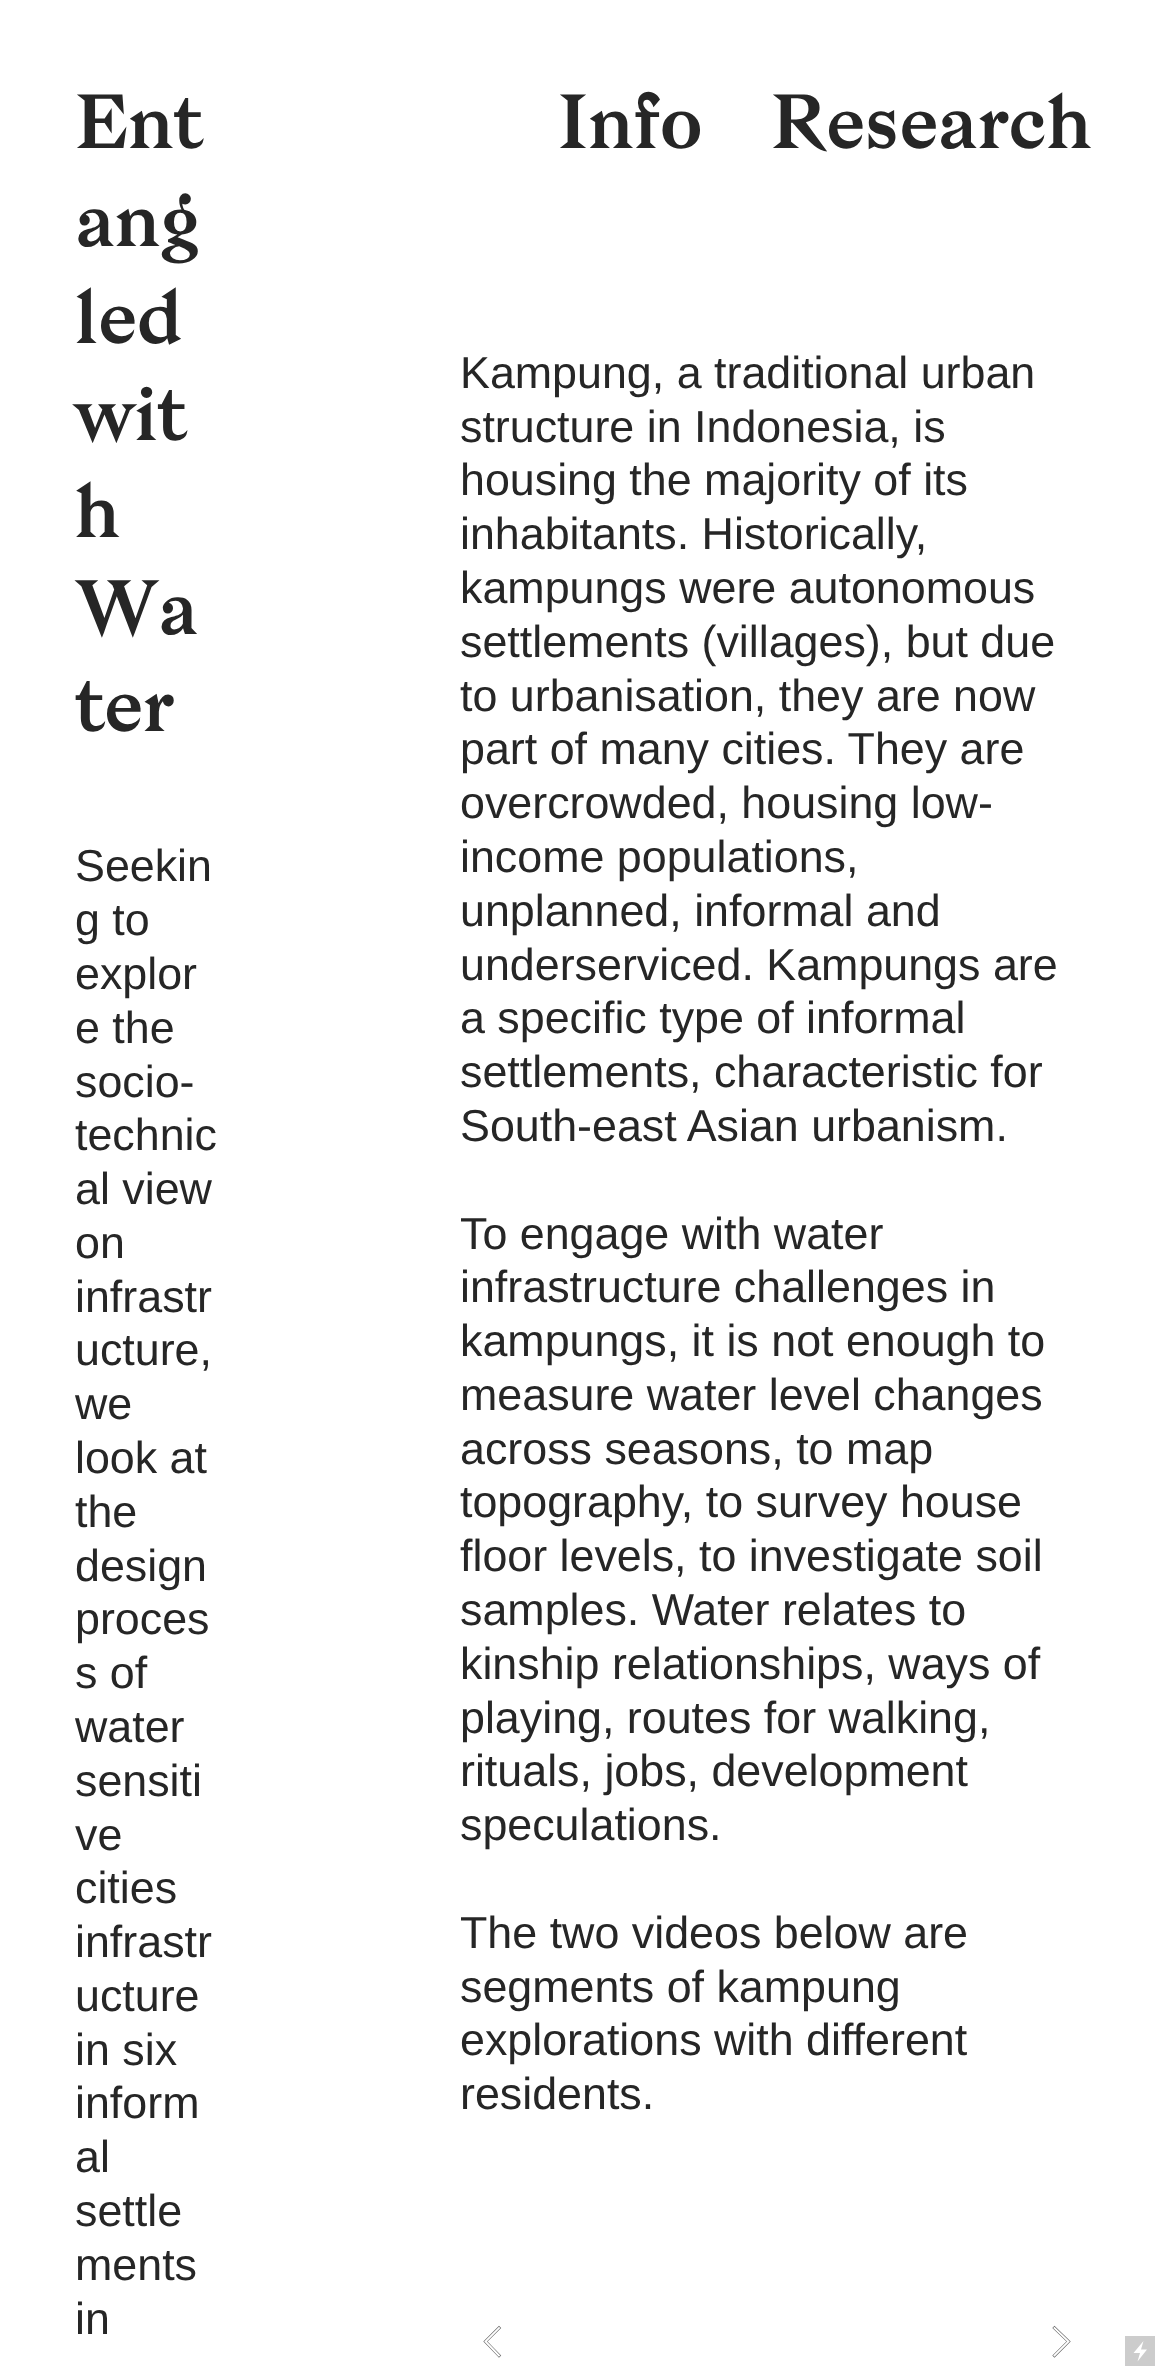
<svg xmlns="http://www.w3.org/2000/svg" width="1167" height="2378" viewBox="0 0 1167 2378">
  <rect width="100%" height="100%" fill="rgb(255,255,255)"/>
  <g font-family="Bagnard" font-size="74.5" fill="rgb(38,38,38)">
    <text>
      <tspan x="75" y="148">Ent</tspan>
      <tspan x="75" y="246">ang</tspan>
      <tspan x="75" y="343">led</tspan>
      <tspan x="75" y="440">wit</tspan>
      <tspan x="75" y="537">h</tspan>
      <tspan x="75" y="634">Wa</tspan>
      <tspan x="75" y="731">ter</tspan>
    </text>
  </g>
  <g font-family="Liberation Sans" font-size="44.8" fill="rgb(38,38,38)">
    <text>
      <tspan x="75" y="881">Seekin</tspan>
      <tspan x="75" y="935">g to</tspan>
      <tspan x="75" y="989">explor</tspan>
      <tspan x="75" y="1043">e the</tspan>
      <tspan x="75" y="1097">socio-</tspan>
      <tspan x="75" y="1150">technic</tspan>
      <tspan x="75" y="1204">al view</tspan>
      <tspan x="75" y="1258">on</tspan>
      <tspan x="75" y="1312">infrastr</tspan>
      <tspan x="75" y="1365">ucture,</tspan>
      <tspan x="75" y="1419">we</tspan>
      <tspan x="75" y="1473">look at</tspan>
      <tspan x="75" y="1527">the</tspan>
      <tspan x="75" y="1581">design</tspan>
      <tspan x="75" y="1634">proces</tspan>
      <tspan x="75" y="1688">s of</tspan>
      <tspan x="75" y="1742">water</tspan>
      <tspan x="75" y="1796">sensiti</tspan>
      <tspan x="75" y="1850">ve</tspan>
      <tspan x="75" y="1903">cities</tspan>
      <tspan x="75" y="1957">infrastr</tspan>
      <tspan x="75" y="2011">ucture</tspan>
      <tspan x="75" y="2065">in six</tspan>
      <tspan x="75" y="2118">inform</tspan>
      <tspan x="75" y="2172">al</tspan>
      <tspan x="75" y="2226">settle</tspan>
      <tspan x="75" y="2280">ments</tspan>
      <tspan x="75" y="2334">in</tspan>
    </text>
  </g>
  <g font-family="Bagnard" font-size="74.5" fill="rgb(38,38,38)">
    <text x="558" y="148">Info</text>
    <text x="771" y="148">Research</text>
  </g>
  <g font-family="Liberation Sans" font-size="44.8" fill="rgb(38,38,38)">
    <text>
      <tspan x="460" y="388">Kampung, a traditional urban</tspan>
      <tspan x="460" y="442">structure in Indonesia, is</tspan>
      <tspan x="460" y="495">housing the majority of its</tspan>
      <tspan x="460" y="549">inhabitants. Historically,</tspan>
      <tspan x="460" y="603">kampungs were autonomous</tspan>
      <tspan x="460" y="657">settlements (villages), but due</tspan>
      <tspan x="460" y="711">to urbanisation, they are now</tspan>
      <tspan x="460" y="764">part of many cities. They are</tspan>
      <tspan x="460" y="818">overcrowded, housing low-</tspan>
      <tspan x="460" y="872">income populations,</tspan>
      <tspan x="460" y="926">unplanned, informal and</tspan>
      <tspan x="460" y="980">underserviced. Kampungs are</tspan>
      <tspan x="460" y="1033">a specific type of informal</tspan>
      <tspan x="460" y="1087">settlements, characteristic for</tspan>
      <tspan x="460" y="1141">South-east Asian urbanism.</tspan>
    </text>
    <text>
      <tspan x="460" y="1249">To engage with water</tspan>
      <tspan x="460" y="1302">infrastructure challenges in</tspan>
      <tspan x="460" y="1356">kampungs, it is not enough to</tspan>
      <tspan x="460" y="1410">measure water level changes</tspan>
      <tspan x="460" y="1464">across seasons, to map</tspan>
      <tspan x="460" y="1517">topography, to survey house</tspan>
      <tspan x="460" y="1571">floor levels, to investigate soil</tspan>
      <tspan x="460" y="1625">samples. Water relates to</tspan>
      <tspan x="460" y="1679">kinship relationships, ways of</tspan>
      <tspan x="460" y="1733">playing, routes for walking,</tspan>
      <tspan x="460" y="1786">rituals, jobs, development</tspan>
      <tspan x="460" y="1840">speculations.</tspan>
    </text>
    <text>
      <tspan x="460" y="1948">The two videos below are</tspan>
      <tspan x="460" y="2002">segments of kampung</tspan>
      <tspan x="460" y="2055">explorations with different</tspan>
      <tspan x="460" y="2109">residents.</tspan>
    </text>
  </g>
  <path d="M499 2355.5L485.5 2341.5L499 2328" fill="none" stroke="rgb(102,102,102)" stroke-width="3.1" stroke-linecap="square"/>
  <path d="M499 2355.5L485.5 2341.5L499 2328" fill="none" stroke="rgb(255,255,255)" stroke-width="1.9" stroke-linecap="square"/>
  <path d="M1054.5 2355.5L1068.5 2341.5L1054.5 2328" fill="none" stroke="rgb(102,102,102)" stroke-width="3.1" stroke-linecap="square"/>
  <path d="M1054.5 2355.5L1068.5 2341.5L1054.5 2328" fill="none" stroke="rgb(255,255,255)" stroke-width="1.9" stroke-linecap="square"/>
  <rect x="1125" y="2336" width="30" height="30" fill="rgb(204,204,204)"/>
  <path d="M1147 2349.5H1141L1143.5 2341L1133.5 2353H1140L1137.5 2361.5Z" fill="rgb(255,255,255)"/>
</svg>
